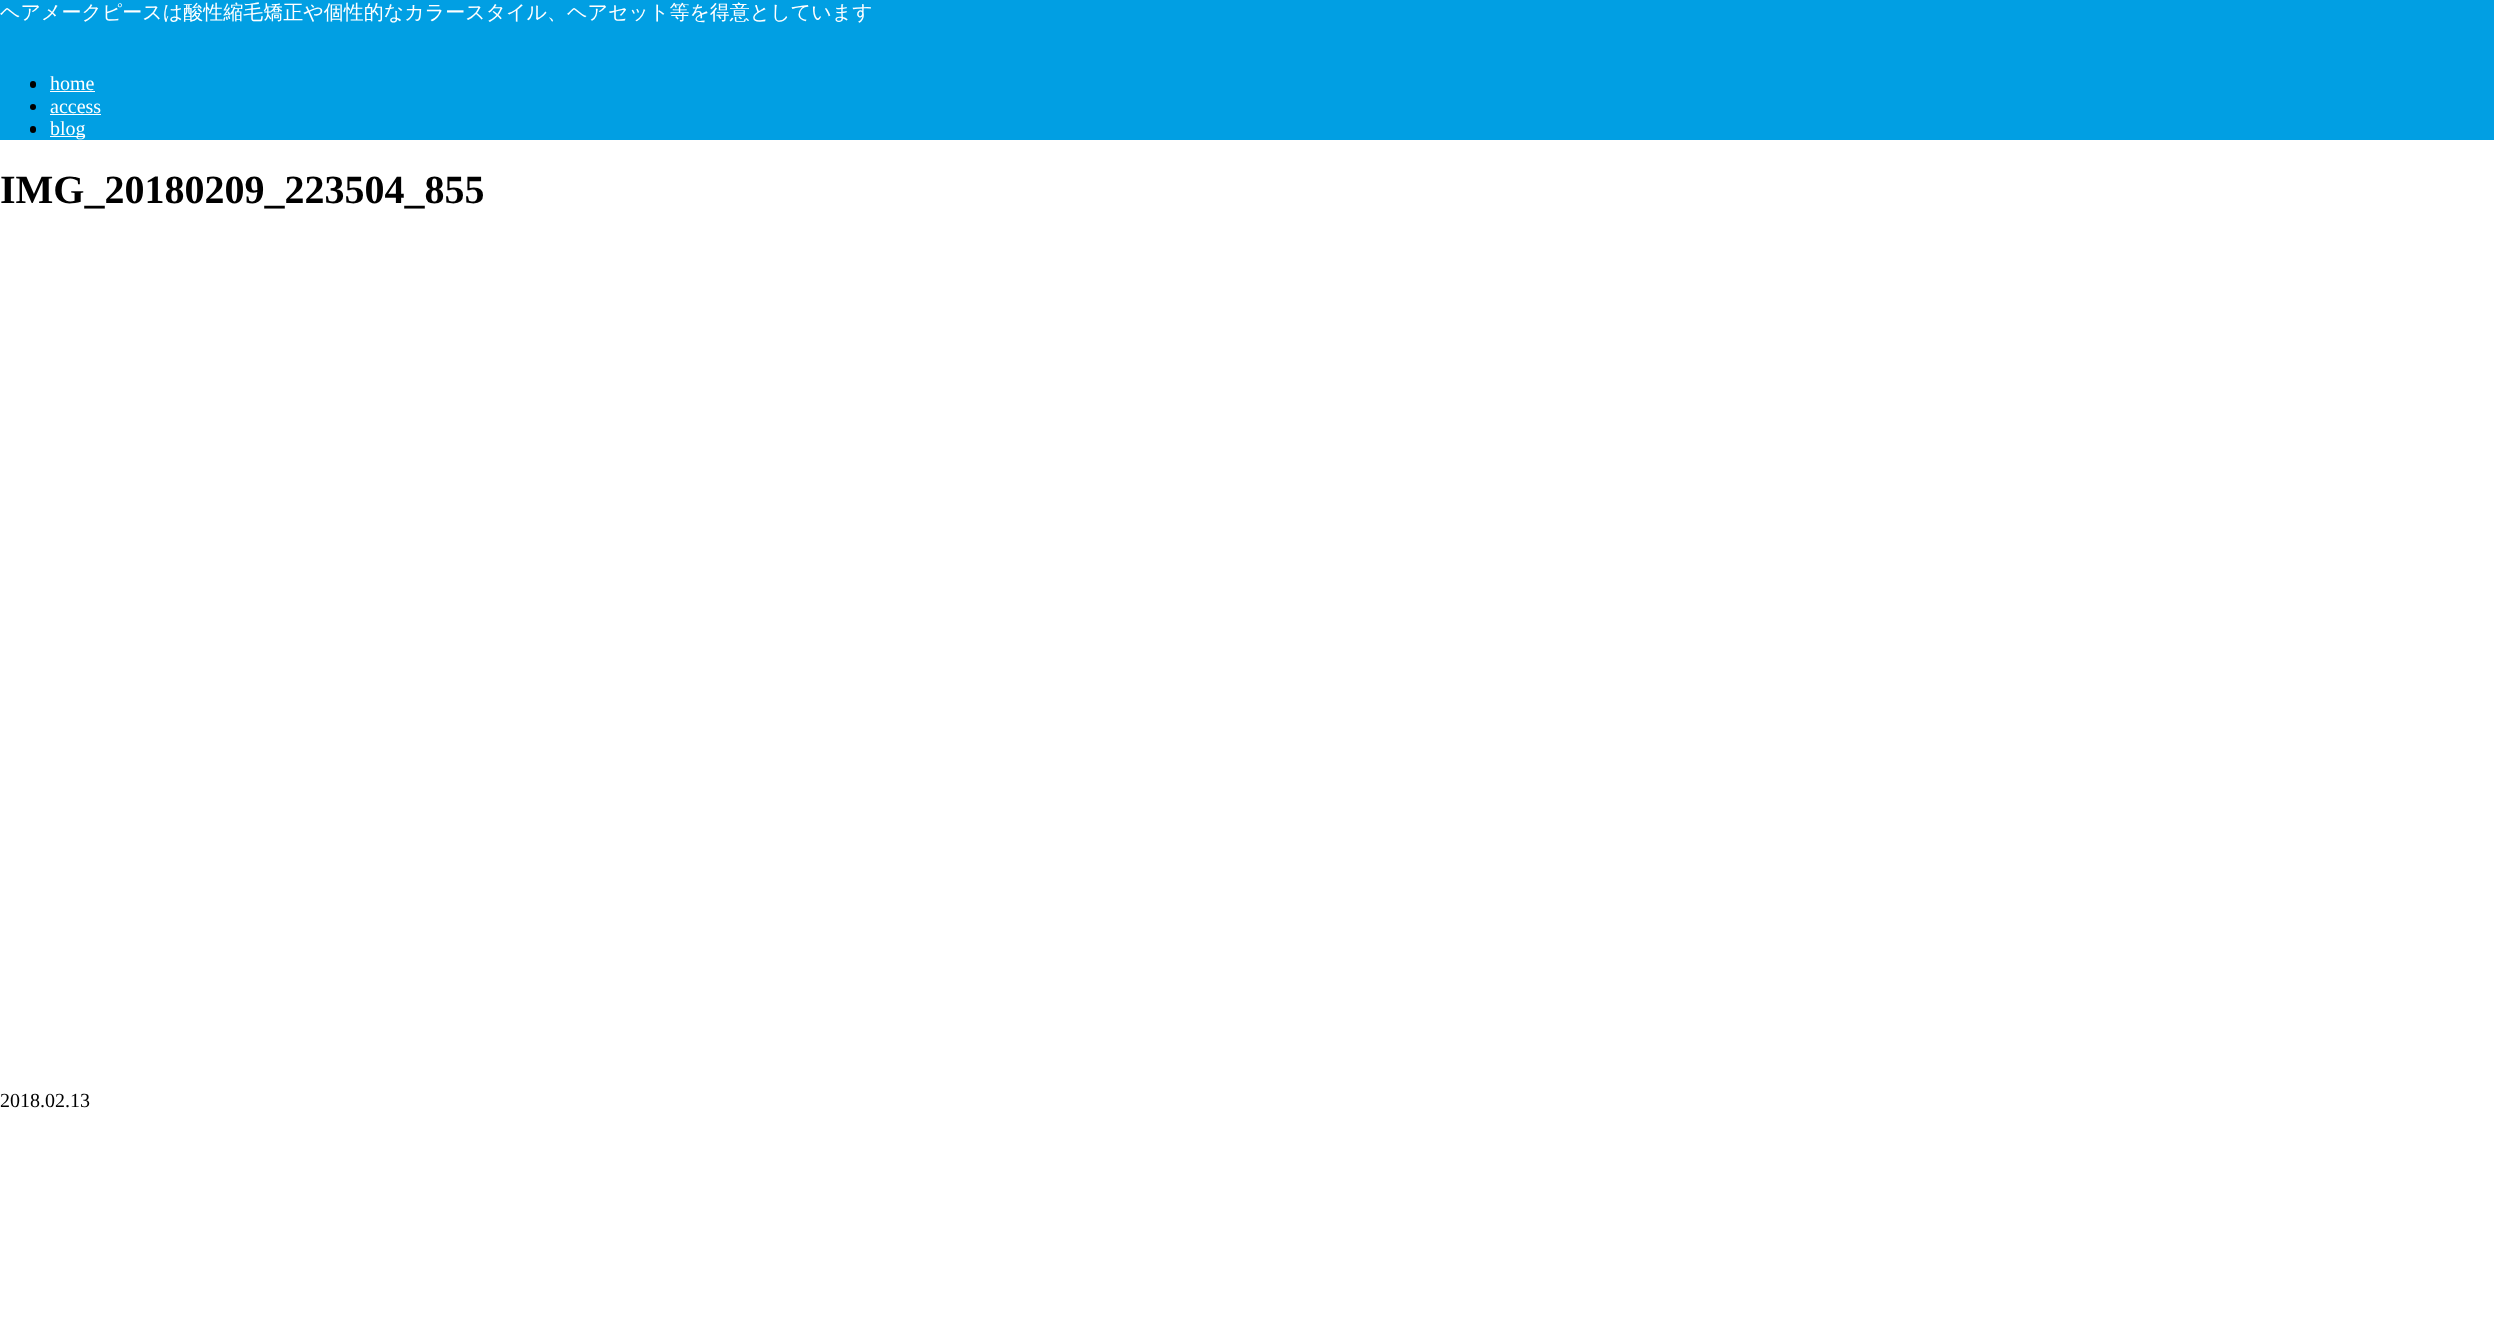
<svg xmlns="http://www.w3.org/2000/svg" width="2494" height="1326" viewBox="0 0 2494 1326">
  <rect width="100%" height="100%" fill="rgb(255,255,255)"/>
  <rect x="0" y="0" width="2494" height="140" fill="rgb(1,159,227)"/>
  <text x="0" y="19" font-family="WenQuanYi Zen Hei" font-size="20" font-weight="500" fill="rgb(255,255,255)">ヘアメークピースは酸性縮毛矯正や個性的なカラースタイル、ヘアセット等を得意としています</text>
  <rect x="30" y="81" width="6" height="7" rx="3" fill="rgb(0,0,0)"/>
  <text x="50" y="90" font-family="Liberation Serif" font-size="20" fill="rgb(255,255,255)">home</text>
  <rect x="50" y="91" width="45" height="1" fill="rgb(255,255,255)"/>
  <circle cx="33" cy="107" r="3" fill="rgb(0,0,0)"/>
  <text x="50" y="113" font-family="Liberation Serif" font-size="20" fill="rgb(255,255,255)">access</text>
  <rect x="50" y="114" width="51" height="1" fill="rgb(255,255,255)"/>
  <rect x="30" y="126" width="6" height="7" rx="3" fill="rgb(0,0,0)"/>
  <rect x="50" y="136" width="35" height="1" fill="rgb(255,255,255)"/>
  <text x="50" y="135" font-family="Liberation Serif" font-size="20" fill="rgb(255,255,255)">blog</text>
  <text x="0" y="203" font-family="Liberation Serif" font-size="40" font-weight="bold" fill="rgb(0,0,0)">IMG_20180209_223504_855</text>
  <text x="0" y="1107" font-family="Liberation Serif" font-size="20" fill="rgb(0,0,0)">2018.02.13</text>
</svg>
